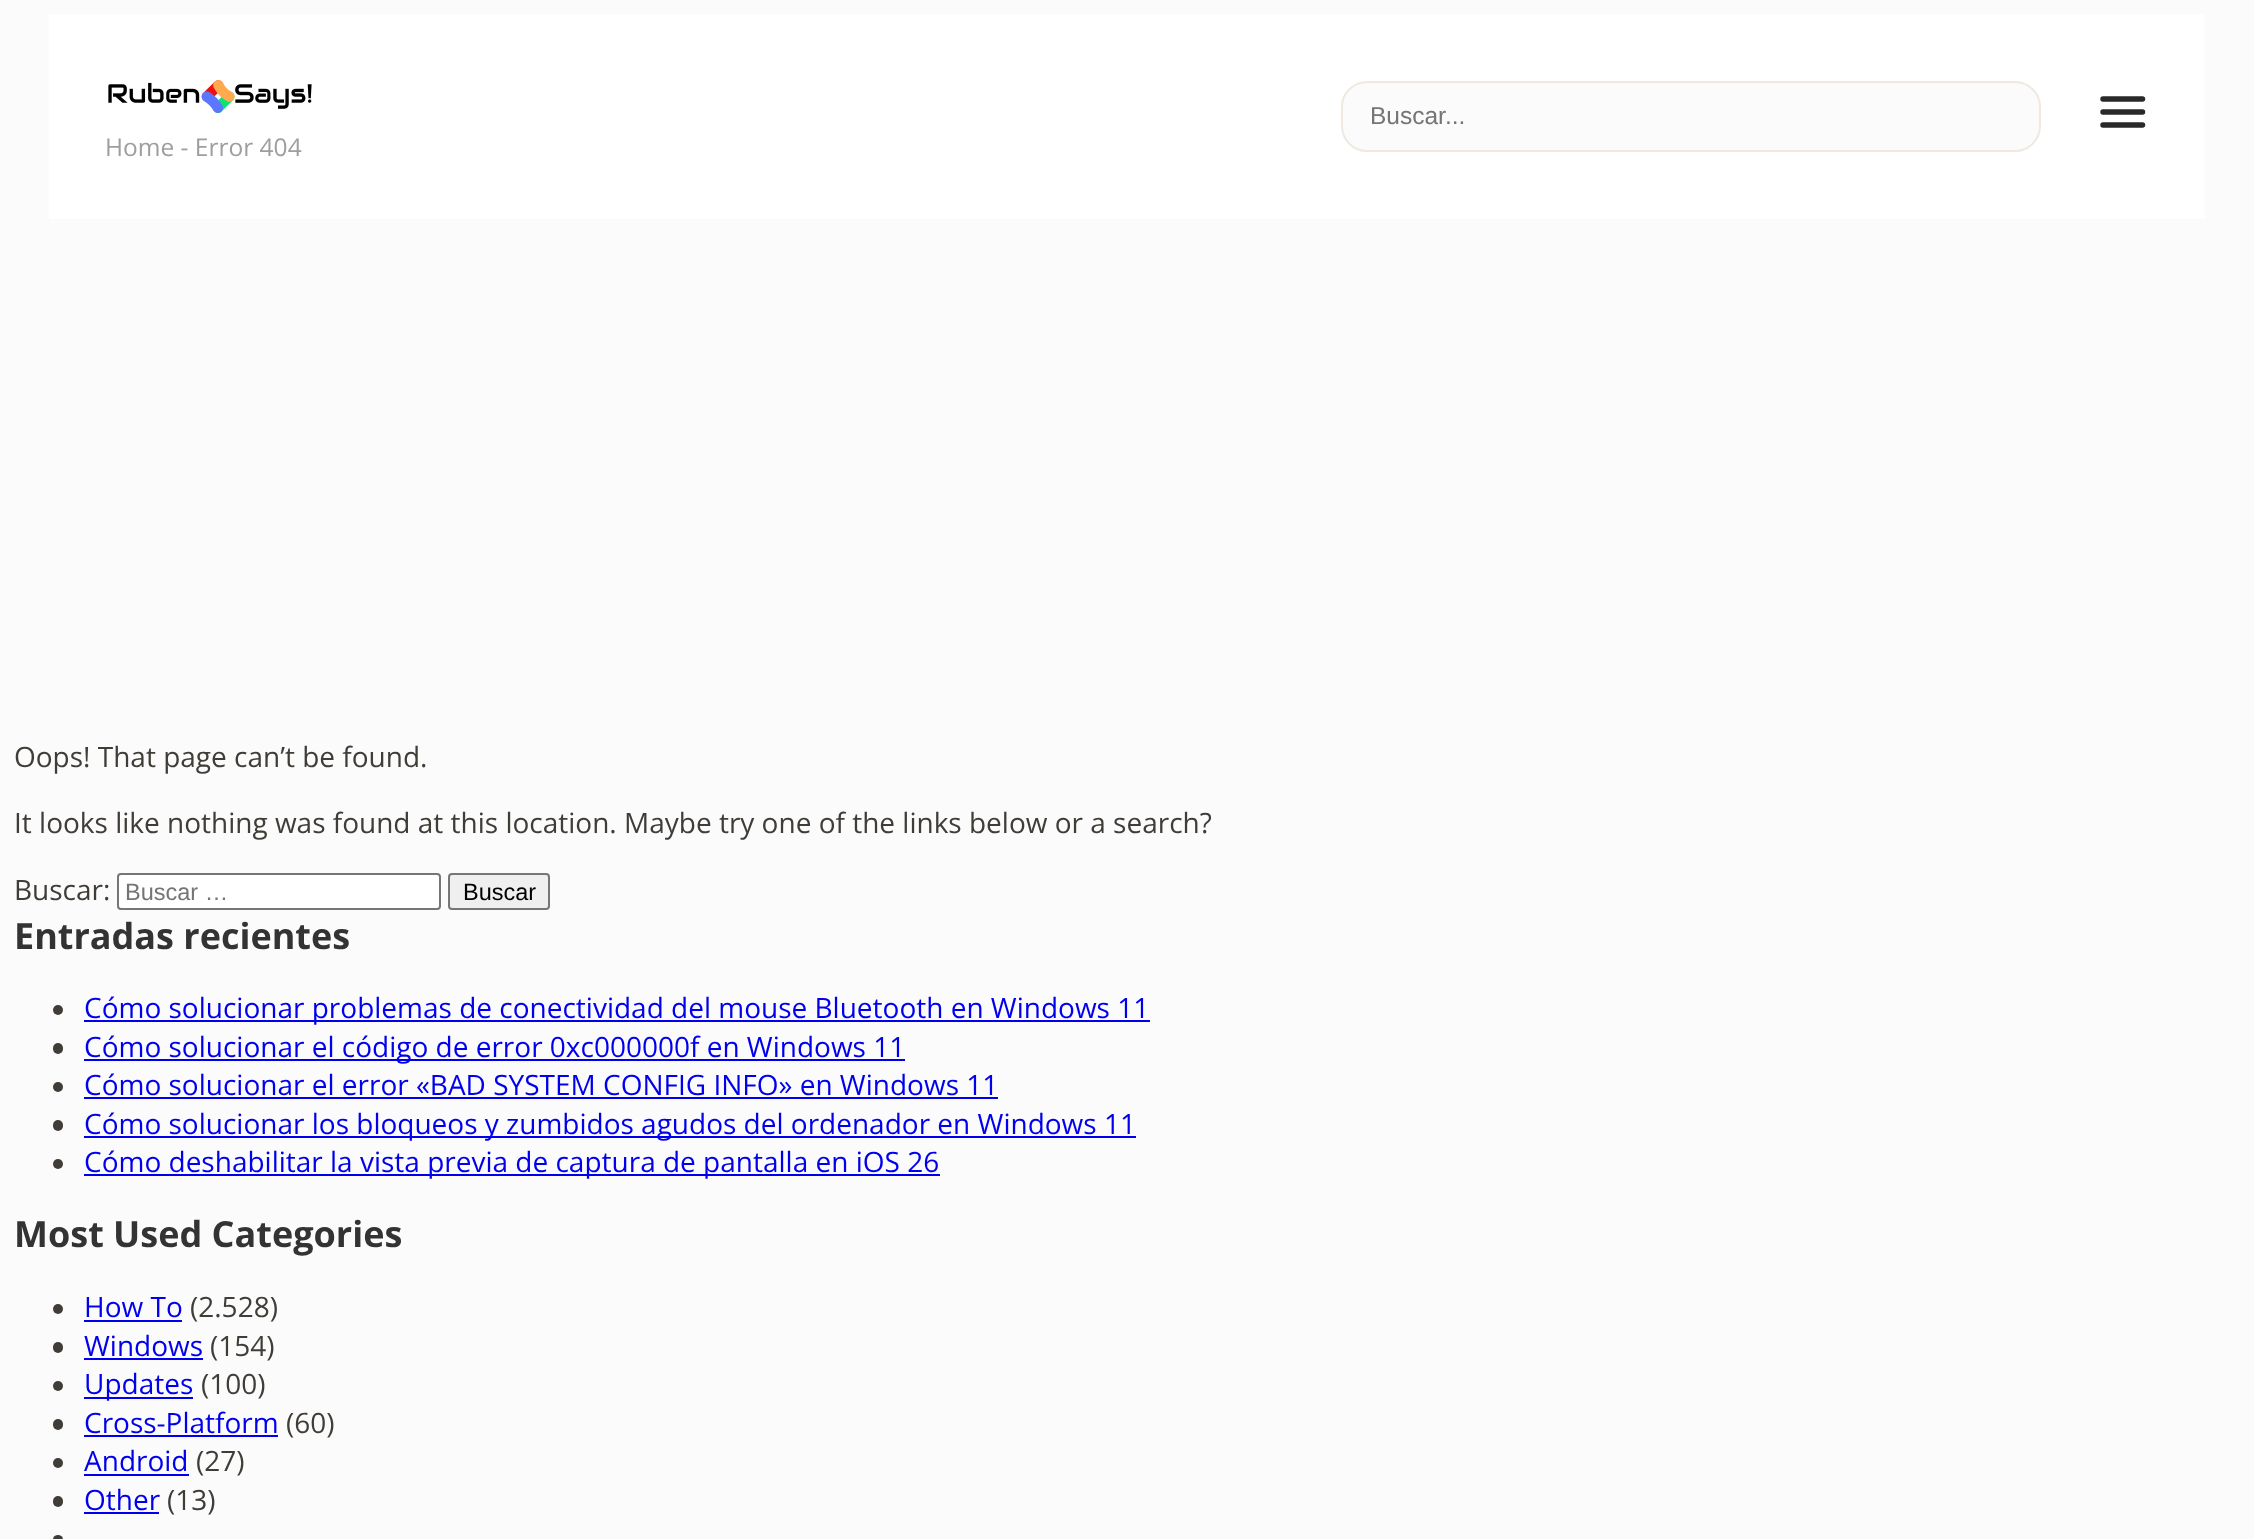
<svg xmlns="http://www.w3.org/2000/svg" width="2254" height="1539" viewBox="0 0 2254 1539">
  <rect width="100%" height="100%" fill="rgb(251,251,251)"/>
  <rect x="49" y="14" width="2156" height="205" fill="rgb(255,255,255)"/>
  <rect x="1342" y="82" width="698" height="69" rx="25" fill="rgb(251,251,251)" stroke="rgb(239,233,225)" stroke-width="2"/>
  <text x="1370" y="124" font-family="Liberation Sans" font-size="24.5" fill="rgb(117,117,117)">Buscar...</text>
  <path d="M2103 99H2142.5M2103 112H2142.5M2103 125H2142.5" fill="none" stroke="rgb(41,41,41)" stroke-width="5.5" stroke-linecap="round" stroke-linejoin="round"/>
  <image x="108" y="80" width="204" height="33" href="pic1.png"/>
  <text x="105" y="156" font-family="Open Sans" font-size="24.5" fill="rgb(160,158,156)">Home - Error 404</text>
  <g font-family="Open Sans" font-size="28" fill="rgb(64,61,56)">
    <text x="14" y="767">Oops! That page can’t be found.</text>
    <text x="14" y="833">It looks like nothing was found at this location. Maybe try one of the links below or a search?</text>
    <text x="14" y="900">Buscar:</text>
  </g>
  <rect x="118" y="874" width="322" height="35" rx="3" fill="rgb(255,255,255)" stroke="rgb(118,118,118)" stroke-width="2"/>
  <text x="125" y="900" font-family="Liberation Sans" font-size="23.5" fill="rgb(117,117,117)">Buscar …</text>
  <rect x="449" y="874" width="100" height="35" rx="3" fill="rgb(239,239,239)" stroke="rgb(118,118,118)" stroke-width="2"/>
  <text x="463" y="900" font-family="Liberation Sans" font-size="23.5" fill="rgb(0,0,0)">Buscar</text>
  <text x="14" y="949" font-family="Open Sans" font-size="36" font-weight="bold" fill="rgb(51,51,51)">Entradas recientes</text>
  <circle cx="58" cy="1010" r="5" fill="rgb(64,61,56)"/>
  <rect x="84" y="1020" width="1066" height="2" fill="rgb(0,0,238)"/>
  <text x="84" y="1018" font-family="Open Sans" font-size="28" fill="rgb(0,0,238)">Cómo solucionar problemas de conectividad del mouse Bluetooth en Windows 11</text>
  <rect x="53" y="1043" width="10" height="11" rx="5" fill="rgb(64,61,56)"/>
  <rect x="84" y="1059" width="821" height="2" fill="rgb(0,0,238)"/>
  <text x="84" y="1057" font-family="Open Sans" font-size="28" fill="rgb(0,0,238)">Cómo solucionar el código de error 0xc000000f en Windows 11</text>
  <circle cx="58" cy="1087" r="5" fill="rgb(64,61,56)"/>
  <text x="84" y="1095" font-family="Open Sans" font-size="28" fill="rgb(0,0,238)">Cómo solucionar el error «BAD SYSTEM CONFIG INFO» en Windows 11</text>
  <rect x="84" y="1097" width="914" height="2" fill="rgb(0,0,238)"/>
  <rect x="53" y="1120" width="10" height="11" rx="5" fill="rgb(64,61,56)"/>
  <rect x="84" y="1136" width="1052" height="2" fill="rgb(0,0,238)"/>
  <text x="84" y="1134" font-family="Open Sans" font-size="28" fill="rgb(0,0,238)">Cómo solucionar los bloqueos y zumbidos agudos del ordenador en Windows 11</text>
  <circle cx="58" cy="1164" r="5" fill="rgb(64,61,56)"/>
  <rect x="84" y="1174" width="856" height="2" fill="rgb(0,0,238)"/>
  <text x="84" y="1172" font-family="Open Sans" font-size="28" fill="rgb(0,0,238)">Cómo deshabilitar la vista previa de captura de pantalla en iOS 26</text>
  <text x="14" y="1247" font-family="Open Sans" font-size="36" font-weight="bold" fill="rgb(51,51,51)">Most Used Categories</text>
  <circle cx="58" cy="1309" r="5" fill="rgb(64,61,56)"/>
  <text x="84" y="1317" font-family="Open Sans" font-size="28" fill="rgb(0,0,238)">How To</text>
  <rect x="84" y="1320" width="98" height="2" fill="rgb(0,0,238)"/>
  <text x="190" y="1317" font-family="Open Sans" font-size="28" fill="rgb(64,61,56)">(2.528)</text>
  <rect x="53" y="1342" width="10" height="11" rx="5" fill="rgb(64,61,56)"/>
  <text x="84" y="1356" font-family="Open Sans" font-size="28" fill="rgb(0,0,238)">Windows</text>
  <rect x="84" y="1358" width="119" height="2" fill="rgb(0,0,238)"/>
  <text x="210" y="1356" font-family="Open Sans" font-size="28" fill="rgb(64,61,56)">(154)</text>
  <circle cx="58" cy="1386" r="5" fill="rgb(64,61,56)"/>
  <rect x="84" y="1397" width="109" height="2" fill="rgb(0,0,238)"/>
  <text x="84" y="1394" font-family="Open Sans" font-size="28" fill="rgb(0,0,238)">Updates</text>
  <text x="201" y="1394" font-family="Open Sans" font-size="28" fill="rgb(64,61,56)">(100)</text>
  <rect x="53" y="1419" width="10" height="11" rx="5" fill="rgb(64,61,56)"/>
  <text x="84" y="1433" font-family="Open Sans" font-size="28" fill="rgb(0,0,238)">Cross-Platform</text>
  <rect x="84" y="1435" width="194" height="2" fill="rgb(0,0,238)"/>
  <text x="286" y="1433" font-family="Open Sans" font-size="28" fill="rgb(64,61,56)">(60)</text>
  <circle cx="58" cy="1463" r="5" fill="rgb(64,61,56)"/>
  <text x="84" y="1471" font-family="Open Sans" font-size="28" fill="rgb(0,0,238)">Android</text>
  <rect x="84" y="1474" width="105" height="2" fill="rgb(0,0,238)"/>
  <text x="196" y="1471" font-family="Open Sans" font-size="28" fill="rgb(64,61,56)">(27)</text>
  <rect x="53" y="1496" width="10" height="11" rx="5" fill="rgb(64,61,56)"/>
  <text x="84" y="1510" font-family="Open Sans" font-size="28" fill="rgb(0,0,238)">Other</text>
  <rect x="84" y="1512" width="75" height="2" fill="rgb(0,0,238)"/>
  <text x="167" y="1510" font-family="Open Sans" font-size="28" fill="rgb(64,61,56)">(13)</text>
  <rect x="53" y="1535" width="10" height="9" rx="5" fill="rgb(64,61,56)"/>
</svg>
